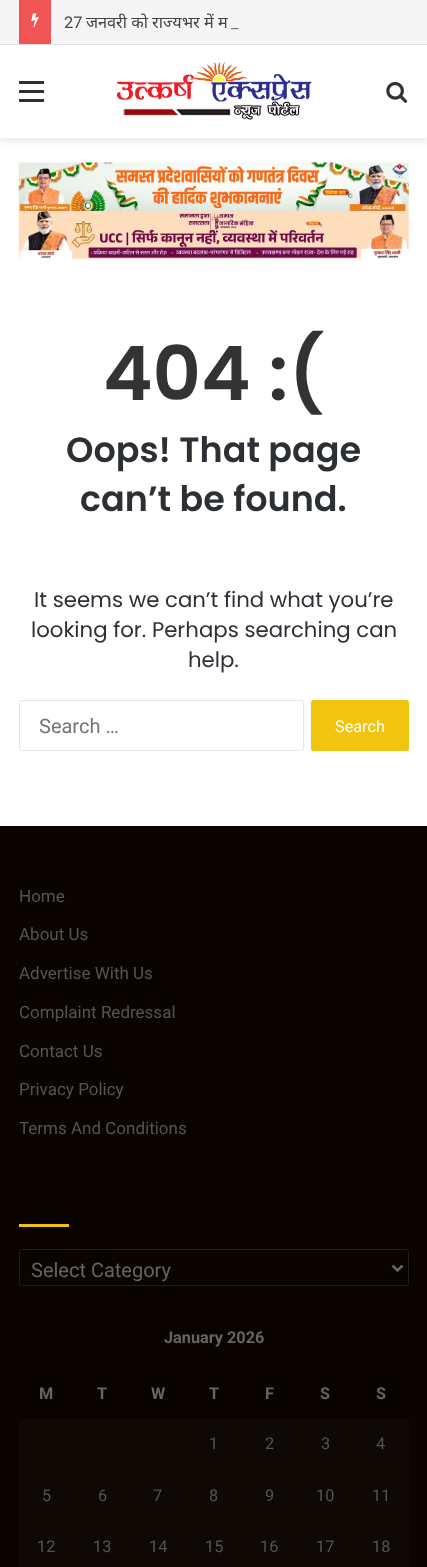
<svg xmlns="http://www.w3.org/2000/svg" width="427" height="1567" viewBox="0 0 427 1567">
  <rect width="100%" height="100%" fill="rgb(255,255,255)"/>
  <rect x="0" y="49" width="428" height="92" fill="rgba(0,0,0,0.1)" filter="blur(4.5px)"/>
  <rect x="0" y="0" width="427" height="44" fill="rgb(245,245,245)"/>
  <rect x="0" y="44" width="427" height="1" fill="rgb(221,221,221)"/>
  <rect x="19" y="0" width="32" height="44" fill="rgb(240,85,85)"/>
  <image x="31" y="13" width="8" height="15" href="pic1.png"/>
  <text x="64" y="28" font-family="Roboto" font-size="16.25" fill="rgb(68,68,68)">27</text>
  <text x="86" y="28" font-family="Noto Sans" font-size="16.25" fill="rgb(68,68,68)">जनवरी को राज्यभर में म</text>
  <text x="231" y="28" font-family="Roboto" font-size="16.25" fill="rgb(117,117,117)">_</text>
  <rect x="0" y="45" width="427" height="93" fill="rgb(255,255,255)"/>
  <rect x="19" y="90" width="25" height="3" fill="rgb(44,47,52)"/>
  <rect x="19" y="81" width="25" height="3" fill="rgb(44,47,52)"/>
  <rect x="19" y="99" width="25" height="3" fill="rgb(44,47,52)"/>
  <image x="116" y="62" width="196" height="58" href="pic2.png"/>
  <image x="386" y="82" width="22" height="21" href="pic3.png"/>
  <image x="18" y="162" width="391" height="97" href="pic4.png"/>
  <text x="103" y="400" font-family="Poppins" font-size="75" font-weight="600" fill="rgb(51,51,51)">404 :(</text>
  <g font-family="Poppins" font-size="35" font-weight="600" fill="rgb(44,47,52)">
    <text x="66" y="462">Oops! That page</text>
    <text x="80" y="511">can’t be found.</text>
  </g>
  <g font-family="Poppins" font-size="21.25" fill="rgb(44,47,52)">
    <text x="34" y="607">It seems we can’t find what you’re</text>
    <text x="31" y="637">looking for. Perhaps searching can</text>
    <text x="188" y="667">help.</text>
  </g>
  <rect x="19.5" y="700.5" width="284" height="50" rx="2" fill="none" stroke="rgb(230,230,230)"/>
  <text x="39" y="733" font-family="Roboto" font-size="20" fill="rgb(117,117,117)">Search …</text>
  <rect x="311" y="700" width="98" height="51" rx="2.5" fill="rgb(241,196,15)"/>
  <text x="335" y="732" font-family="Roboto" font-size="16.25" fill="rgb(255,255,255)">Search</text>
  <rect x="0" y="826" width="427" height="741" fill="rgb(10,4,0)"/>
  <g font-family="Roboto" font-size="17" fill="rgb(84,84,84)">
    <text x="19" y="902">Home</text>
    <text x="19" y="940">About Us</text>
    <text x="19" y="979">Advertise With Us</text>
    <text x="19" y="1018">Complaint Redressal</text>
    <text x="19" y="1057">Contact Us</text>
    <text x="19" y="1095">Privacy Policy</text>
    <text x="19" y="1134">Terms And Conditions</text>
  </g>
  <rect x="19" y="1224" width="50" height="3" fill="rgb(239,194,15)"/>
  <rect x="19.5" y="1249.5" width="389" height="36" rx="2" fill="none" stroke="rgb(34,29,25)"/>
  <path d="M392.5 1265.5L397.5 1270.5L402.5 1265.5" fill="none" stroke="rgb(101,101,101)" stroke-width="2.5"/>
  <text x="31" y="1277" font-family="Roboto" font-size="20" fill="rgb(101,101,101)">Select Category</text>
  <g font-family="Roboto" font-size="16.25" font-weight="bold" fill="rgb(101,101,101)">
    <text x="164" y="1343">January 2026</text>
    <text x="39" y="1399">M</text>
    <text x="97" y="1399">T</text>
    <text x="151" y="1399">W</text>
    <text x="209" y="1399">T</text>
    <text x="265" y="1399">F</text>
    <text x="320" y="1399">S</text>
    <text x="376" y="1399">S</text>
  </g>
  <rect x="19" y="1419" width="390" height="51" fill="rgb(15,9,5)"/>
  <g font-family="Roboto" font-size="16.25" fill="rgb(84,84,84)">
    <text x="209" y="1449">1</text>
    <text x="265" y="1449">2</text>
    <text x="321" y="1449">3</text>
    <text x="376" y="1449">4</text>
  </g>
  <rect x="19" y="1470" width="390" height="51" fill="rgb(15,9,5)"/>
  <g font-family="Roboto" font-size="16.25" fill="rgb(84,84,84)">
    <text x="42" y="1501">5</text>
    <text x="98" y="1501">6</text>
    <text x="153" y="1501">7</text>
    <text x="209" y="1501">8</text>
    <text x="265" y="1501">9</text>
    <text x="316" y="1501">10</text>
    <text x="372" y="1501">11</text>
  </g>
  <rect x="19" y="1521" width="390" height="46" fill="rgb(15,9,5)"/>
  <g font-family="Roboto" font-size="16.25" fill="rgb(84,84,84)">
    <text x="37" y="1552">12</text>
    <text x="93" y="1552">13</text>
    <text x="149" y="1552">14</text>
    <text x="205" y="1552">15</text>
    <text x="260" y="1552">16</text>
    <text x="316" y="1552">17</text>
    <text x="372" y="1552">18</text>
  </g>
</svg>
